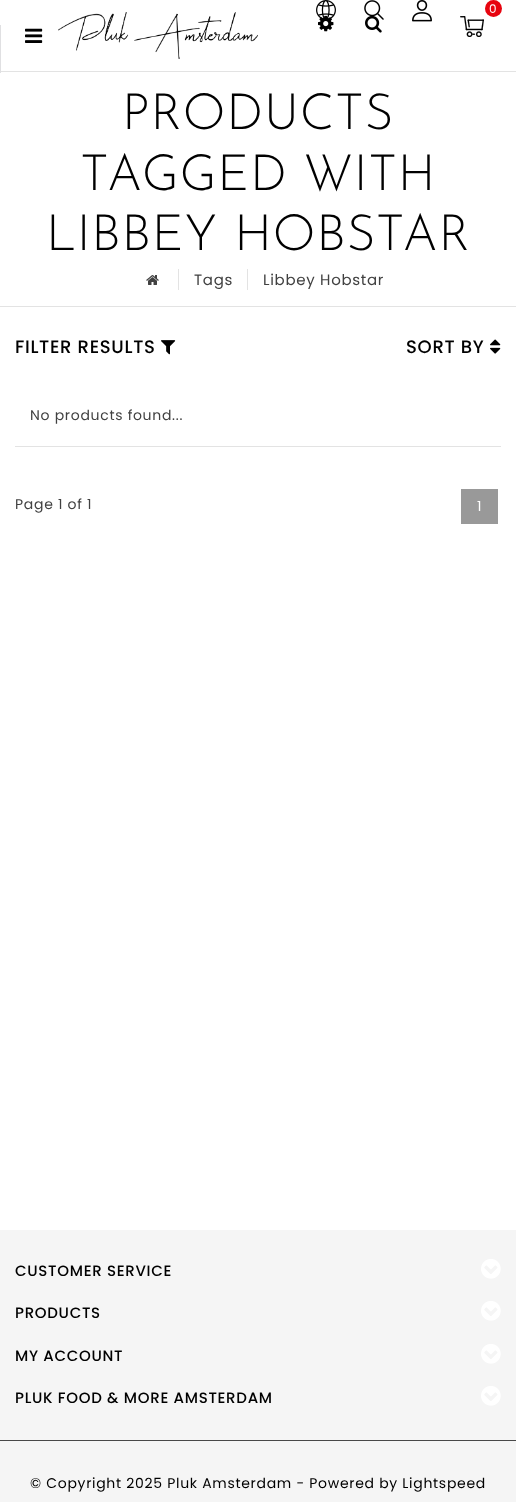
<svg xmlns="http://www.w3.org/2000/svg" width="516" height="1502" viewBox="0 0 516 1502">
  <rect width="100%" height="100%" fill="rgb(255,255,255)"/>
  <image x="316" y="0" width="20" height="19" href="pic1.png"/>
  <image x="318" y="15" width="16" height="17" href="pic2.png"/>
  <image x="364" y="0" width="20" height="20" href="pic3.png"/>
  <image x="365" y="16" width="17" height="17" href="pic4.png"/>
  <image x="412" y="0" width="20" height="22" href="pic5.png"/>
  <circle cx="493.5" cy="8.5" r="8.5" fill="rgb(231,4,15)"/>
  <text x="489" y="13" font-family="Poppins" font-size="12" letter-spacing="0.7" fill="rgb(255,255,255)">0</text>
  <image x="460" y="16" width="24" height="21" href="pic6.png"/>
  <rect x="0" y="71" width="516" height="1" fill="rgb(227,227,227)"/>
  <rect x="0" y="25" width="1" height="48" fill="rgb(224,224,226)"/>
  <image x="25" y="28" width="18" height="15" href="pic7.png"/>
  <image x="58" y="12" width="200" height="47" href="pic8.png"/>
  <rect x="0" y="306" width="516" height="1" fill="rgb(227,227,227)"/>
  <g font-family="Josefin Sans" font-size="50" font-weight="300" letter-spacing="0.7" fill="rgb(0,0,0)">
    <text x="122" y="129">PRODUCTS</text>
    <text x="80" y="190">TAGGED WITH</text>
    <text x="46" y="250">LIBBEY HOBSTAR</text>
  </g>
  <image x="146" y="275" width="13" height="10" href="pic9.png"/>
  <text x="194" y="285" font-family="Poppins" font-size="15" letter-spacing="0.7" fill="rgb(65,65,65)">Tags</text>
  <rect x="178" y="269" width="1" height="21" fill="rgb(227,227,227)"/>
  <text x="263" y="285" font-family="Poppins" font-size="15" letter-spacing="0.7" fill="rgb(65,65,65)">Libbey Hobstar</text>
  <rect x="247" y="269" width="1" height="21" fill="rgb(227,227,227)"/>
  <text x="15" y="353" font-family="Poppins" font-size="18" font-weight="500" letter-spacing="0.7" fill="rgb(0,0,0)">FILTER RESULTS</text>
  <image x="161" y="340" width="15" height="15" href="pic10.png"/>
  <text x="406" y="353" font-family="Poppins" font-size="18" font-weight="500" letter-spacing="0.7" fill="rgb(0,0,0)">SORT BY</text>
  <image x="490" y="339" width="11" height="15" href="pic11.png"/>
  <text x="30" y="420" font-family="Poppins" font-size="14" letter-spacing="0.7" fill="rgb(65,65,65)">No products found...</text>
  <rect x="15" y="446" width="486" height="1" fill="rgb(227,227,227)"/>
  <text x="15" y="509" font-family="Poppins" font-size="14" letter-spacing="0.7" fill="rgb(65,65,65)">Page 1 of 1</text>
  <rect x="461" y="489" width="37" height="35" fill="rgb(153,153,153)"/>
  <text x="477" y="511" font-family="Poppins" font-size="14" letter-spacing="0.7" fill="rgb(255,255,255)">1</text>
  <rect x="0" y="1230" width="516" height="272" fill="rgb(245,245,245)"/>
  <text x="15" y="1276" font-family="Poppins" font-size="15" font-weight="500" letter-spacing="0.7" fill="rgb(0,0,0)">CUSTOMER SERVICE</text>
  <image x="481" y="1259" width="20" height="20" href="pic12.png"/>
  <text x="15" y="1318" font-family="Poppins" font-size="15" font-weight="500" letter-spacing="0.7" fill="rgb(0,0,0)">PRODUCTS</text>
  <image x="481" y="1301" width="20" height="20" href="pic12.png"/>
  <text x="15" y="1361" font-family="Poppins" font-size="15" font-weight="500" letter-spacing="0.7" fill="rgb(0,0,0)">MY ACCOUNT</text>
  <image x="481" y="1344" width="20" height="20" href="pic12.png"/>
  <text x="15" y="1403" font-family="Poppins" font-size="15" font-weight="500" letter-spacing="0.7" fill="rgb(0,0,0)">PLUK FOOD &amp; MORE AMSTERDAM</text>
  <image x="481" y="1386" width="20" height="20" href="pic12.png"/>
  <rect x="0" y="1440" width="516" height="1" fill="rgb(72,72,72)"/>
  <text x="30" y="1488" font-family="Poppins" font-size="14" letter-spacing="0.7" fill="rgb(0,0,0)">© Copyright 2025 Pluk Amsterdam - Powered by Lightspeed</text>
</svg>
